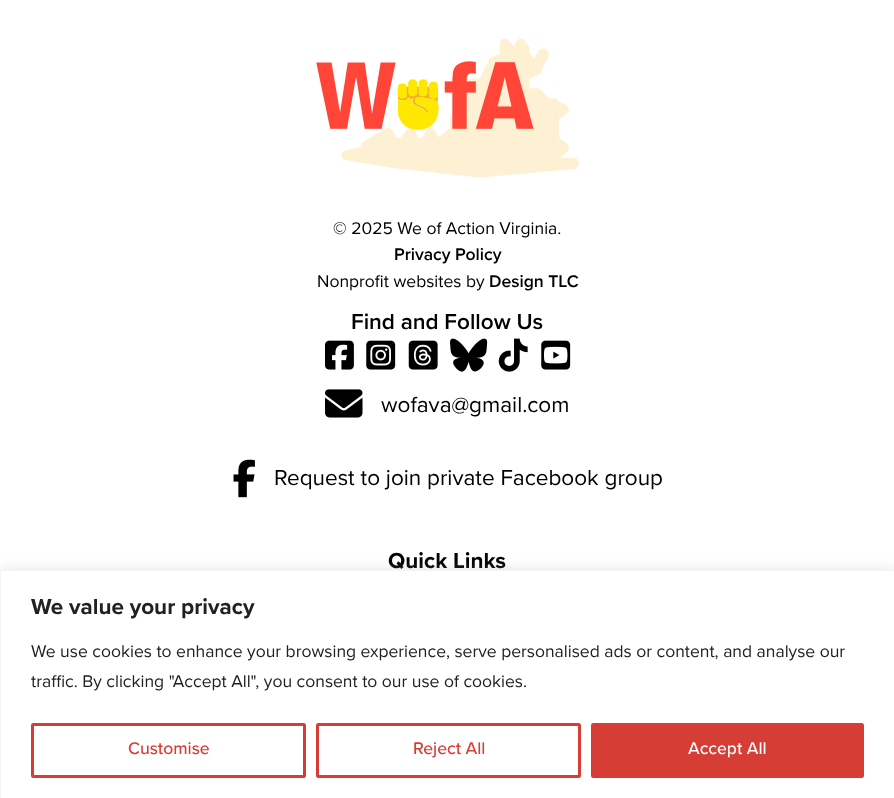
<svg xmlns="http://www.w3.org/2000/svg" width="894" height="798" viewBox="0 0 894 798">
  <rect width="100%" height="100%" fill="rgb(255,255,255)"/>
  <image x="316" y="39" width="263" height="139" href="pic1.png"/>
  <text x="333" y="234" font-family="Proxima Nova" font-size="17.5" fill="rgb(0,0,0)">© 2025 We of Action Virginia.</text>
  <text x="394" y="260" font-family="Proxima Nova" font-size="17.5" font-weight="600" fill="rgb(0,0,0)">Privacy Policy</text>
  <text x="317" y="287" font-family="Proxima Nova" font-size="17.5" fill="rgb(0,0,0)">Nonprofit websites by</text>
  <text x="489" y="287" font-family="Proxima Nova" font-size="17.5" font-weight="600" fill="rgb(0,0,0)">Design TLC</text>
  <text x="351" y="329" font-family="Proxima Nova" font-size="22.5" font-weight="600" fill="rgb(0,0,0)">Find and Follow Us</text>
  <image x="325" y="340" width="29" height="30" href="pic2.png"/>
  <image x="366" y="340" width="30" height="30" href="pic3.png"/>
  <image x="408" y="340" width="30" height="30" href="pic4.png"/>
  <image x="450" y="338" width="38" height="34" href="pic5.png"/>
  <image x="498" y="338" width="30" height="34" href="pic6.png"/>
  <image x="541" y="340" width="30" height="30" href="pic7.png"/>
  <image x="325" y="389" width="38" height="29" href="pic8.png"/>
  <text x="381" y="412" font-family="Proxima Nova" font-size="22.5" fill="rgb(0,0,0)">wofava@gmail.com</text>
  <image x="233" y="459" width="22" height="39" href="pic9.png"/>
  <text x="274" y="485" font-family="Proxima Nova" font-size="22.5" fill="rgb(0,0,0)">Request to join private Facebook group</text>
  <text x="388" y="568" font-family="Proxima Nova" font-size="22.5" font-weight="bold" fill="rgb(0,0,0)">Quick Links</text>
  <rect x="0" y="569" width="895" height="229" fill="rgba(172,171,171,0.3)" filter="blur(6px)"/>
  <rect x="0.5" y="570.5" width="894" height="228" fill="rgb(255,255,255)" stroke="rgb(244,244,244)"/>
  <text x="31" y="614" font-family="Proxima Nova" font-size="22.5" font-weight="bold" fill="rgb(33,33,33)">We value your privacy</text>
  <g font-family="Proxima Nova" font-size="17.5" fill="rgb(33,33,33)">
    <text>
      <tspan x="31" y="657">We use cookies to enhance your browsing experience, serve personalised ads or content, and analyse our</tspan>
      <tspan x="31" y="687">traffic. By clicking "Accept All", you consent to our use of cookies.</tspan>
    </text>
  </g>
  <rect x="32.5" y="724.5" width="272" height="52" rx="1" fill="none" stroke="rgb(214,61,53)" stroke-width="3"/>
  <text x="128" y="754" font-family="Proxima Nova" font-size="17.5" font-weight="500" fill="rgb(214,61,53)">Customise</text>
  <rect x="317.5" y="724.5" width="262" height="52" rx="1" fill="none" stroke="rgb(214,61,53)" stroke-width="3"/>
  <text x="413" y="754" font-family="Proxima Nova" font-size="17.5" font-weight="500" fill="rgb(214,61,53)">Reject All</text>
  <rect x="592.5" y="724.5" width="270" height="52" rx="1" fill="rgb(214,61,53)" stroke="rgb(214,61,53)" stroke-width="3"/>
  <text x="688" y="754" font-family="Proxima Nova" font-size="17.5" font-weight="500" fill="rgb(255,255,255)">Accept All</text>
</svg>
